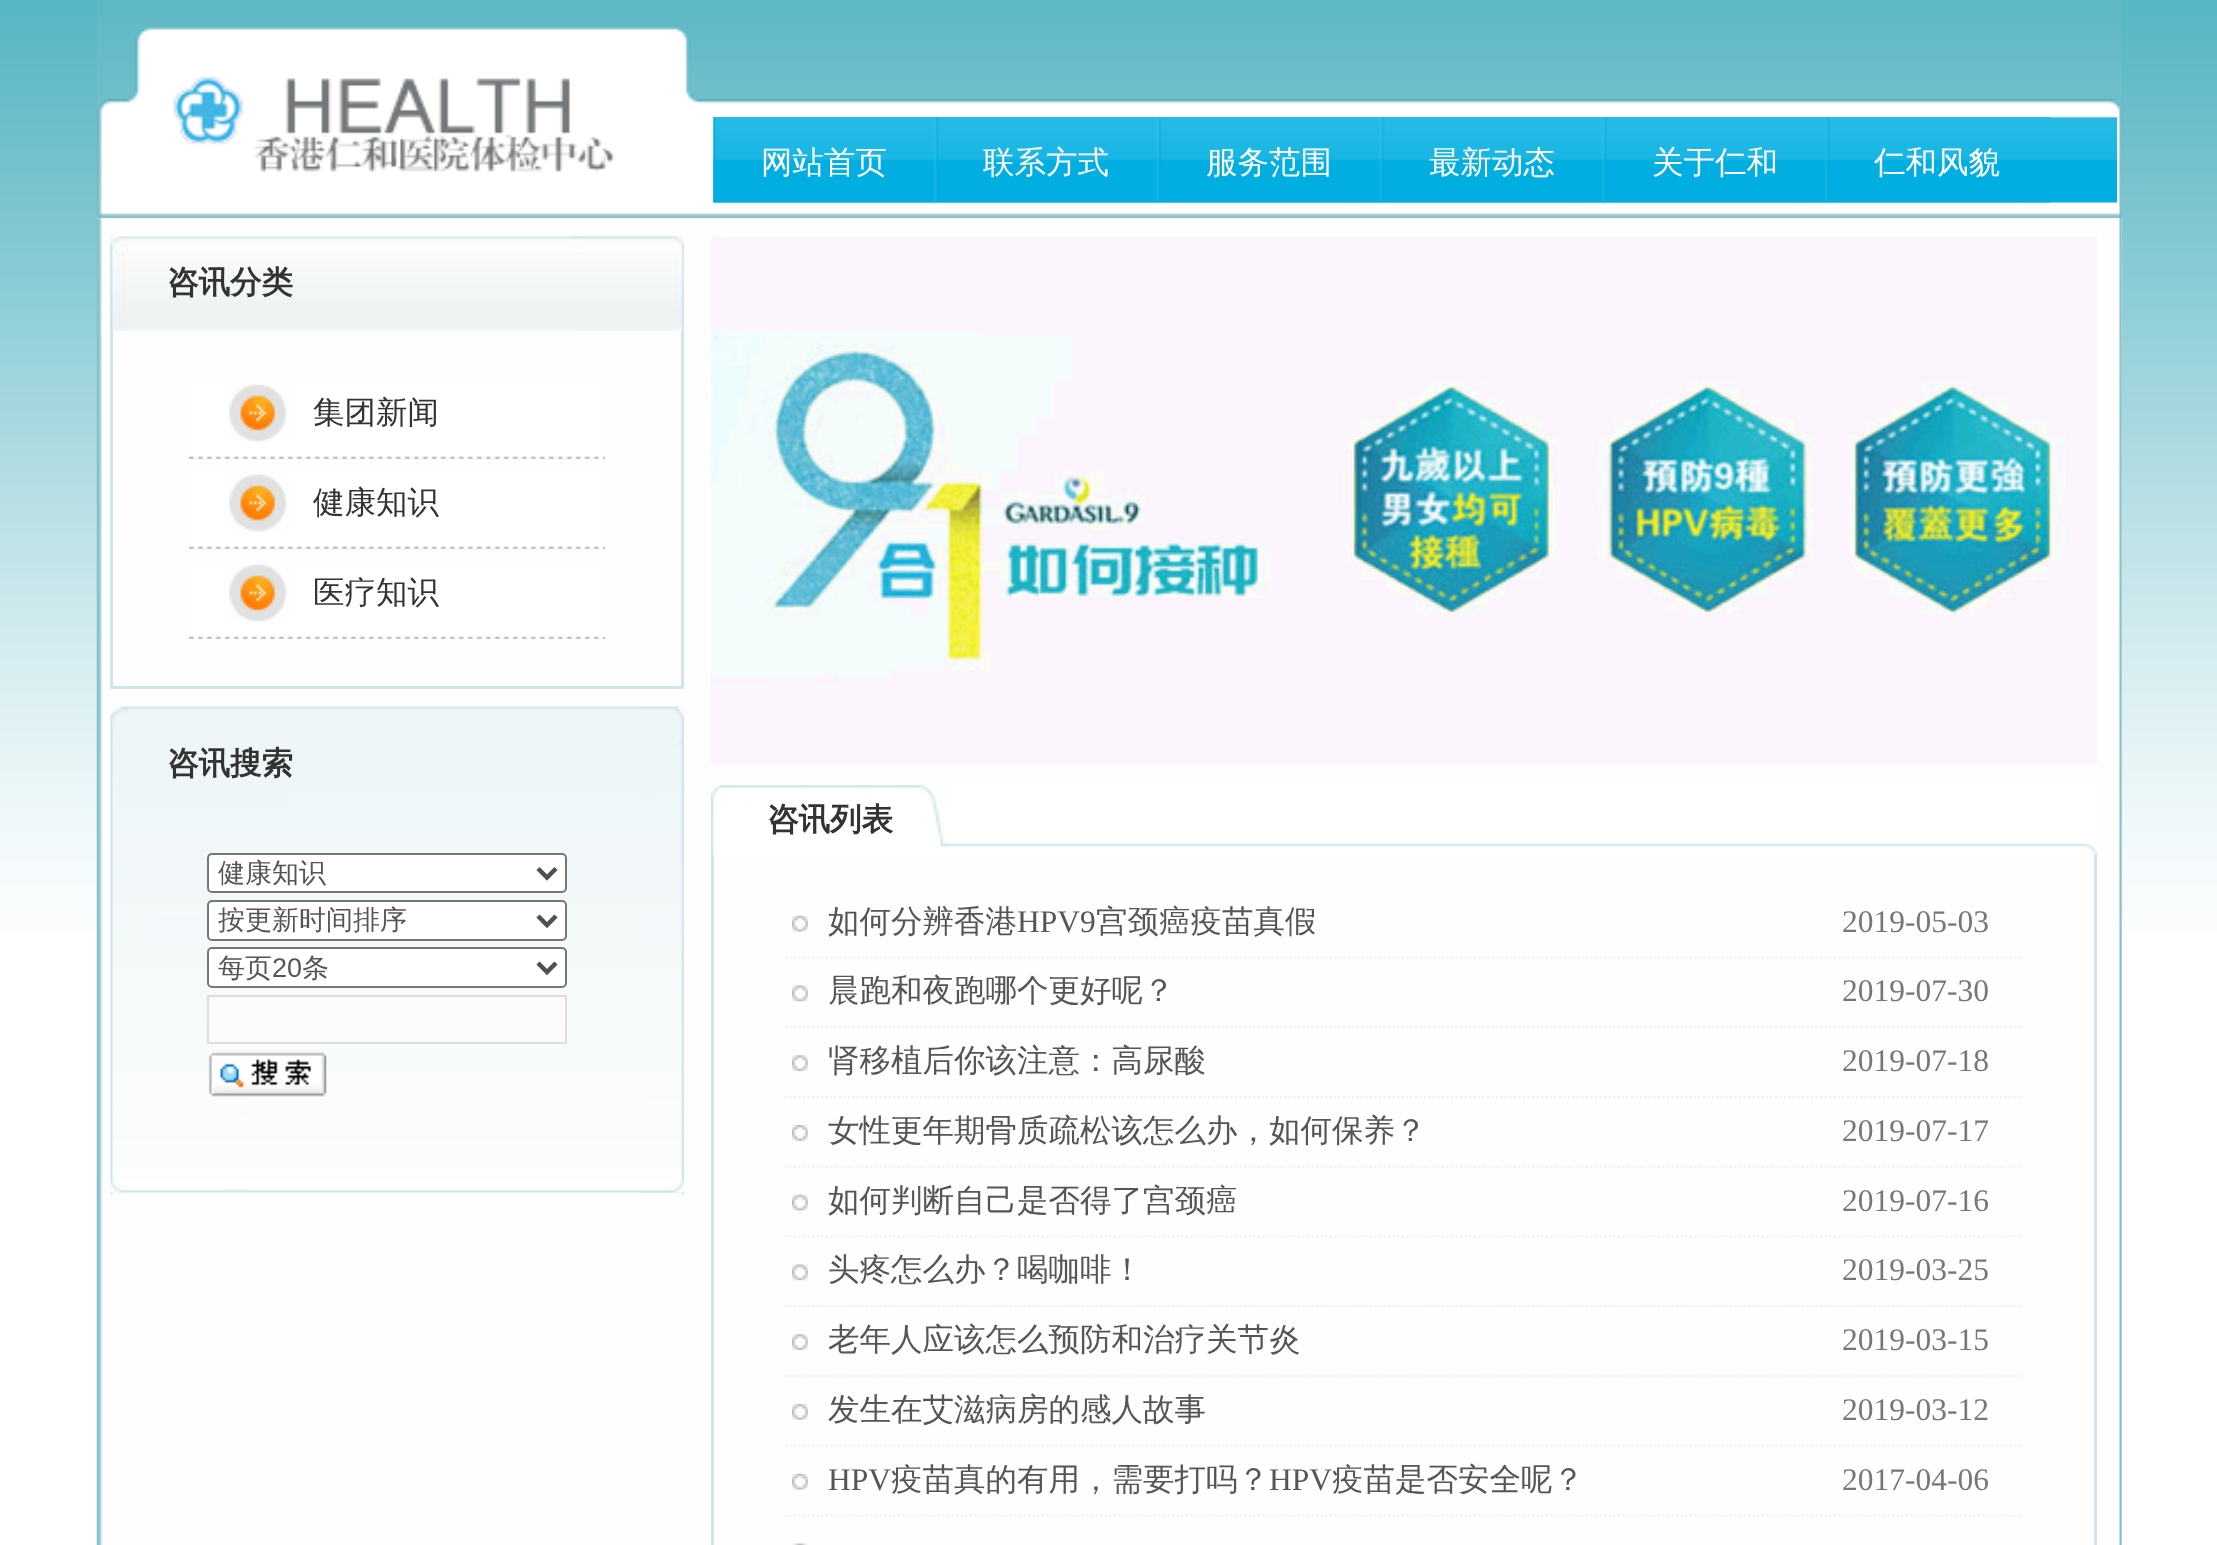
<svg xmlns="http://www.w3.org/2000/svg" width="2217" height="1545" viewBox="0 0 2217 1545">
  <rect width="100%" height="100%" fill="rgb(255,255,255)"/>
  <image x="0" y="0" width="2217" height="1545" href="pic1.png"/>
  <rect x="97" y="218" width="2025" height="711" fill="rgb(255,255,255)"/>
  <image x="96" y="218" width="2026" height="1327" href="pic11.png"/>
  <image x="97" y="0" width="2025" height="219" href="pic2.png"/>
  <image x="173" y="76" width="442" height="96" href="pic3.png"/>
  <image x="713" y="117" width="1405" height="86" href="pic4.png"/>
  <image x="713" y="117" width="223" height="86" href="pic5.png"/>
  <text x="761" y="173" font-family="WenQuanYi Zen Hei" font-size="31.5" font-weight="500" fill="rgb(255,255,255)">网站首页</text>
  <image x="933" y="117" width="226" height="86" href="pic6.png"/>
  <text x="983" y="173" font-family="WenQuanYi Zen Hei" font-size="31.5" font-weight="500" fill="rgb(255,255,255)">联系方式</text>
  <image x="1156" y="117" width="226" height="86" href="pic7.png"/>
  <text x="1206" y="173" font-family="WenQuanYi Zen Hei" font-size="31.5" font-weight="500" fill="rgb(255,255,255)">服务范围</text>
  <image x="1379" y="117" width="226" height="86" href="pic8.png"/>
  <text x="1429" y="173" font-family="WenQuanYi Zen Hei" font-size="31.5" font-weight="500" fill="rgb(255,255,255)">最新动态</text>
  <image x="1602" y="117" width="225" height="86" href="pic9.png"/>
  <text x="1652" y="173" font-family="WenQuanYi Zen Hei" font-size="31.5" font-weight="500" fill="rgb(255,255,255)">关于仁和</text>
  <image x="1824" y="117" width="226" height="86" href="pic10.png"/>
  <text x="1874" y="173" font-family="WenQuanYi Zen Hei" font-size="31.5" font-weight="500" fill="rgb(255,255,255)">仁和风貌</text>
  <rect x="110" y="236" width="3" height="453" fill="rgb(207,229,233)"/>
  <rect x="681" y="236" width="3" height="453" fill="rgb(207,229,233)"/>
  <image x="110" y="236" width="574" height="95" href="pic12.png"/>
  <text x="167" y="293" font-family="WenQuanYi Zen Hei" font-size="31.5" font-weight="bold" fill="rgb(51,51,51)">咨讯分类</text>
  <image x="571" y="236" width="113" height="95" href="pic13.png"/>
  <image x="189" y="384" width="417" height="75" href="pic14.png"/>
  <text x="313" y="423" font-family="WenQuanYi Zen Hei" font-size="31.5" font-weight="500" fill="rgb(51,51,51)">集团新闻</text>
  <image x="189" y="474" width="417" height="75" href="pic14.png"/>
  <text x="313" y="513" font-family="WenQuanYi Zen Hei" font-size="31.5" font-weight="500" fill="rgb(51,51,51)">健康知识</text>
  <image x="189" y="564" width="417" height="75" href="pic15.png"/>
  <text x="313" y="603" font-family="WenQuanYi Zen Hei" font-size="31.5" font-weight="500" fill="rgb(51,51,51)">医疗知识</text>
  <rect x="113" y="686" width="568" height="3" fill="rgb(207,229,233)"/>
  <image x="711" y="236" width="1386" height="529" href="pic16.png"/>
  <image x="110" y="706" width="574" height="489" href="pic17.png"/>
  <image x="641" y="706" width="43" height="489" href="pic18.png"/>
  <text x="167" y="774" font-family="WenQuanYi Zen Hei" font-size="31.5" font-weight="bold" fill="rgb(51,51,51)">咨讯搜索</text>
  <rect x="208" y="854" width="358" height="38" rx="4" fill="rgb(255,255,255)" stroke="rgb(118,118,118)" stroke-width="2"/>
  <path d="M538 868.5L547 877.5L556 868.5" fill="none" stroke="rgb(80,80,80)" stroke-width="4.5"/>
  <text x="218" y="882" font-family="WenQuanYi Zen Hei" font-size="27" font-weight="500" fill="rgb(85,85,85)">健康知识</text>
  <rect x="208" y="901" width="358" height="39" rx="4" fill="rgb(255,255,255)" stroke="rgb(118,118,118)" stroke-width="2"/>
  <path d="M538 916L547 925L556 916" fill="none" stroke="rgb(80,80,80)" stroke-width="4.5"/>
  <text x="218" y="929" font-family="WenQuanYi Zen Hei" font-size="27" font-weight="500" fill="rgb(85,85,85)">按更新时间排序</text>
  <rect x="208" y="948" width="358" height="39" rx="4" fill="rgb(255,255,255)" stroke="rgb(118,118,118)" stroke-width="2"/>
  <path d="M538 963L547 972L556 963" fill="none" stroke="rgb(80,80,80)" stroke-width="4.5"/>
  <text x="218" y="977" font-family="WenQuanYi Zen Hei" font-size="27" font-weight="500" fill="rgb(85,85,85)">每页</text>
  <text x="272" y="977" font-family="Liberation Sans" font-size="27" fill="rgb(85,85,85)">20</text>
  <text x="302" y="977" font-family="WenQuanYi Zen Hei" font-size="27" font-weight="500" fill="rgb(85,85,85)">条</text>
  <rect x="208" y="996" width="358" height="47" fill="rgb(251,251,251)" stroke="rgb(221,221,221)" stroke-width="2"/>
  <image x="208" y="1052" width="119" height="45" href="pic19.png"/>
  <image x="110" y="1181" width="574" height="12" href="pic20.png"/>
  <image x="639" y="1181" width="45" height="12" href="pic21.png"/>
  <rect x="711" y="785" width="3" height="760" fill="rgb(208,229,234)"/>
  <rect x="2094" y="785" width="3" height="760" fill="rgb(208,229,234)"/>
  <image x="711" y="785" width="1386" height="70" href="pic22.png"/>
  <text x="767" y="830" font-family="WenQuanYi Zen Hei" font-size="31.5" font-weight="bold" fill="rgb(51,51,51)">咨讯列表</text>
  <image x="2085" y="785" width="12" height="70" href="pic23.png"/>
  <image x="792" y="915" width="16" height="17" href="pic24.png"/>
  <path d="M785 957.5H2023" fill="none" stroke="rgb(238,238,238)" stroke-width="2.2" stroke-dasharray="2.25 2.25"/>
  <text x="828" y="932" font-family="WenQuanYi Zen Hei" font-size="31.5" font-weight="500" fill="rgb(85,85,85)">如何分辨香港</text>
  <text x="1017" y="932" font-family="Liberation Serif" font-size="31.5" fill="rgb(85,85,85)">HPV9</text>
  <text x="1096" y="932" font-family="WenQuanYi Zen Hei" font-size="31.5" font-weight="500" fill="rgb(85,85,85)">宫颈癌疫苗真假</text>
  <text x="1842" y="932" font-family="Liberation Serif" font-size="31.5" fill="rgb(119,119,119)">2019-05-03</text>
  <image x="792" y="985" width="16" height="17" href="pic25.png"/>
  <path d="M785 1027H2023" fill="none" stroke="rgb(238,238,238)" stroke-width="2.2" stroke-dasharray="2.25 2.25"/>
  <text x="828" y="1001" font-family="WenQuanYi Zen Hei" font-size="31.5" font-weight="500" fill="rgb(85,85,85)">晨跑和夜跑哪个更好呢？</text>
  <text x="1842" y="1001" font-family="Liberation Serif" font-size="31.5" fill="rgb(119,119,119)">2019-07-30</text>
  <image x="792" y="1055" width="16" height="16" href="pic26.png"/>
  <path d="M785 1097H2023" fill="none" stroke="rgb(238,238,238)" stroke-width="2.2" stroke-dasharray="2.25 2.25"/>
  <text x="828" y="1071" font-family="WenQuanYi Zen Hei" font-size="31.5" font-weight="500" fill="rgb(85,85,85)">肾移植后你该注意：高尿酸</text>
  <text x="1842" y="1071" font-family="Liberation Serif" font-size="31.5" fill="rgb(119,119,119)">2019-07-18</text>
  <image x="792" y="1125" width="16" height="16" href="pic27.png"/>
  <path d="M785 1166.5H2023" fill="none" stroke="rgb(238,238,238)" stroke-width="2.2" stroke-dasharray="2.25 2.25"/>
  <text x="828" y="1141" font-family="WenQuanYi Zen Hei" font-size="31.5" font-weight="500" fill="rgb(85,85,85)">女性更年期骨质疏松该怎么办，如何保养？</text>
  <text x="1842" y="1141" font-family="Liberation Serif" font-size="31.5" fill="rgb(119,119,119)">2019-07-17</text>
  <image x="792" y="1194" width="16" height="17" href="pic24.png"/>
  <path d="M785 1236.5H2023" fill="none" stroke="rgb(238,238,238)" stroke-width="2.2" stroke-dasharray="2.25 2.25"/>
  <text x="828" y="1211" font-family="WenQuanYi Zen Hei" font-size="31.5" font-weight="500" fill="rgb(85,85,85)">如何判断自己是否得了宫颈癌</text>
  <text x="1842" y="1211" font-family="Liberation Serif" font-size="31.5" fill="rgb(119,119,119)">2019-07-16</text>
  <image x="792" y="1264" width="16" height="17" href="pic25.png"/>
  <path d="M785 1306H2023" fill="none" stroke="rgb(238,238,238)" stroke-width="2.2" stroke-dasharray="2.25 2.25"/>
  <text x="828" y="1280" font-family="WenQuanYi Zen Hei" font-size="31.5" font-weight="500" fill="rgb(85,85,85)">头疼怎么办？喝咖啡！</text>
  <text x="1842" y="1280" font-family="Liberation Serif" font-size="31.5" fill="rgb(119,119,119)">2019-03-25</text>
  <image x="792" y="1334" width="16" height="16" href="pic26.png"/>
  <path d="M785 1376H2023" fill="none" stroke="rgb(238,238,238)" stroke-width="2.2" stroke-dasharray="2.25 2.25"/>
  <text x="828" y="1350" font-family="WenQuanYi Zen Hei" font-size="31.5" font-weight="500" fill="rgb(85,85,85)">老年人应该怎么预防和治疗关节炎</text>
  <text x="1842" y="1350" font-family="Liberation Serif" font-size="31.5" fill="rgb(119,119,119)">2019-03-15</text>
  <image x="792" y="1404" width="16" height="16" href="pic27.png"/>
  <path d="M785 1445.5H2023" fill="none" stroke="rgb(238,238,238)" stroke-width="2.2" stroke-dasharray="2.25 2.25"/>
  <text x="828" y="1420" font-family="WenQuanYi Zen Hei" font-size="31.5" font-weight="500" fill="rgb(85,85,85)">发生在艾滋病房的感人故事</text>
  <text x="1842" y="1420" font-family="Liberation Serif" font-size="31.5" fill="rgb(119,119,119)">2019-03-12</text>
  <image x="792" y="1473" width="16" height="17" href="pic24.png"/>
  <path d="M785 1515.5H2023" fill="none" stroke="rgb(238,238,238)" stroke-width="2.2" stroke-dasharray="2.25 2.25"/>
  <text x="828" y="1490" font-family="Liberation Serif" font-size="31.5" fill="rgb(85,85,85)">HPV</text>
  <text x="891" y="1490" font-family="WenQuanYi Zen Hei" font-size="31.5" font-weight="500" fill="rgb(85,85,85)">疫苗真的有用，需要打吗？</text>
  <text x="1269" y="1490" font-family="Liberation Serif" font-size="31.5" fill="rgb(85,85,85)">HPV</text>
  <text x="1332" y="1490" font-family="WenQuanYi Zen Hei" font-size="31.5" font-weight="500" fill="rgb(85,85,85)">疫苗是否安全呢？</text>
  <text x="1842" y="1490" font-family="Liberation Serif" font-size="31.5" fill="rgb(119,119,119)">2017-04-06</text>
  <image x="792" y="1543" width="16" height="2" href="pic28.png"/>
</svg>
